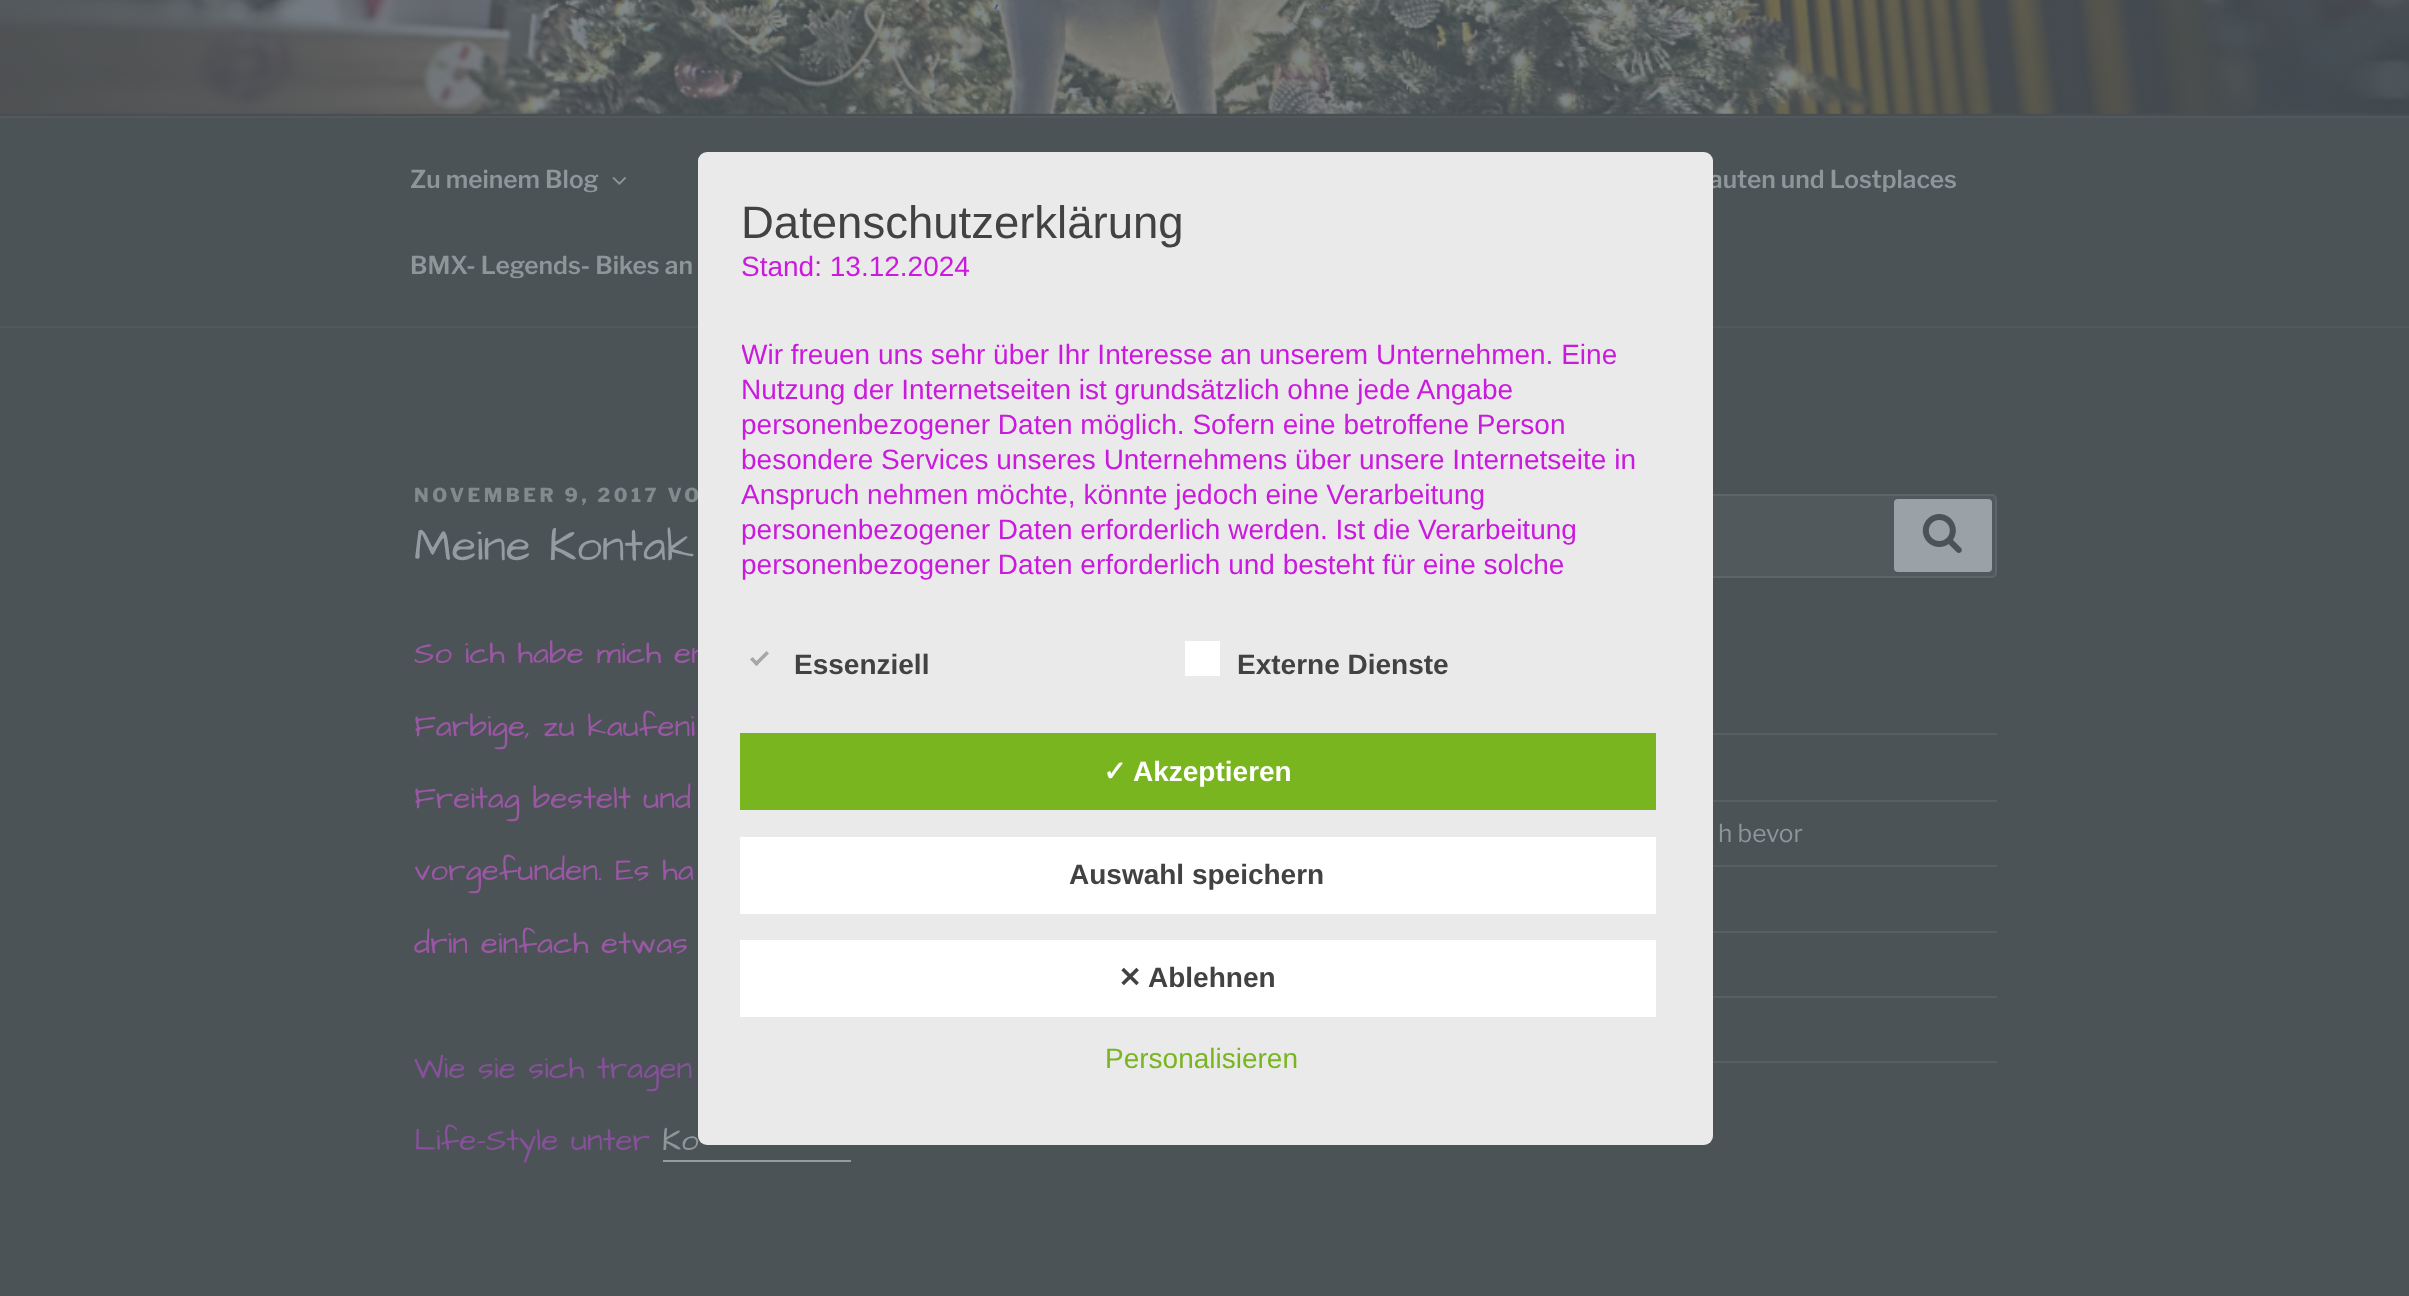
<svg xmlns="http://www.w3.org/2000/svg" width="2409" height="1296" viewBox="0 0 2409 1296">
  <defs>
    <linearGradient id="g1" gradientUnits="userSpaceOnUse" x1="1205" y1="-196" x2="1205" y2="116"><stop offset="0" stop-color="rgb(63,70,75)" stop-opacity="0"/><stop offset="0.75" stop-color="rgb(63,70,75)" stop-opacity="0.3"/><stop offset="1" stop-color="rgb(63,70,75)" stop-opacity="0.3"/></linearGradient>
    <clipPath id="clip1"><rect x="742" y="196" width="945" height="389"/></clipPath>
  </defs>
  <rect width="100%" height="100%" fill="rgb(75,83,87)"/>
  <image x="0" y="0" width="2409" height="114" href="pic1.png"/>
  <rect x="0" y="0" width="2409" height="116" fill="url(#g1)"/>
  <g font-family="Architects Daughter" font-size="28" fill="rgb(70,80,145)">
    <text x="995" y="7">,</text>
    <text x="1323" y="7">,</text>
  </g>
  <rect x="0" y="116" width="2409" height="2" fill="rgb(81,89,93)"/>
  <rect x="0" y="326" width="2409" height="2" fill="rgb(81,89,93)"/>
  <text x="410" y="188" font-family="'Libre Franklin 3'" font-size="24.5" font-weight="100" fill="rgb(142,150,154)">Zu meinem Blog</text>
  <image x="612" y="177" width="15" height="8" href="pic2.png"/>
  <g font-family="'Libre Franklin 3'" font-size="24.5" font-weight="100" fill="rgb(142,150,154)">
    <text x="1709" y="188">auten und Lostplaces</text>
    <text x="410" y="274">BMX- Legends- Bikes an</text>
  </g>
  <text x="414" y="502" font-family="Libre Franklin" font-size="19.25" font-weight="100" letter-spacing="3.5" fill="rgb(130,138,142)">NOVEMBER 9, 2017 VO</text>
  <text x="414" y="560" font-family="Architects Daughter" font-size="45.5" fill="rgb(148,156,161)">Meine Kontak</text>
  <g font-family="Architects Daughter" font-size="31.5" fill="rgb(154,87,164)">
    <text x="414" y="663">So ich habe mich en</text>
    <text x="414" y="736">Farbige, zu kaufeni</text>
    <text x="414" y="808">Freitag bestelt und</text>
    <text x="414" y="880">vorgefunden. Es ha</text>
    <text x="414" y="953">drin einfach etwas</text>
  </g>
  <g font-family="Architects Daughter" font-size="31.5" fill="rgb(135,80,154)">
    <text x="414" y="1078">Wie sie sich tragen</text>
    <text x="414" y="1150">Life-Style unter</text>
  </g>
  <text x="662" y="1150" font-family="Architects Daughter" font-size="31.5" fill="rgb(142,150,154)">Ko</text>
  <rect x="663" y="1160" width="188" height="2" fill="rgb(149,157,161)"/>
  <rect x="1427" y="495" width="569" height="82" rx="4" fill="rgb(81,89,93)" stroke="rgb(93,101,105)" stroke-width="2"/>
  <rect x="1894" y="499" width="98" height="73" rx="4" fill="rgb(155,162,167)"/>
  <image x="1922" y="514" width="40" height="39" href="pic3.png"/>
  <rect x="1713" y="733" width="284" height="2" fill="rgb(87,95,99)"/>
  <rect x="1713" y="800" width="284" height="2" fill="rgb(87,95,99)"/>
  <rect x="1713" y="865" width="284" height="2" fill="rgb(87,95,99)"/>
  <text x="1718" y="842" font-family="'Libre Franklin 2'" font-size="24.5" font-weight="100" fill="rgb(142,150,154)">h bevor</text>
  <rect x="1713" y="931" width="284" height="2" fill="rgb(87,95,99)"/>
  <rect x="1713" y="996" width="284" height="2" fill="rgb(87,95,99)"/>
  <rect x="1713" y="1061" width="284" height="2" fill="rgb(87,95,99)"/>
  <rect x="698" y="152" width="1015" height="993" rx="9" fill="rgb(234,234,234)"/>
  <text x="741" y="238" font-family="Liberation Sans" font-size="45.5" fill="rgb(66,66,66)">Datenschutzerklärung</text>
  <text x="741" y="276" font-family="Liberation Sans" font-size="28" fill="rgb(202,26,221)">Stand: 13.12.2024</text>
  <g clip-path="url(#clip1)">
    <text x="741" y="364" font-family="Liberation Sans" font-size="28" fill="rgb(202,26,221)">Wir freuen uns sehr über Ihr Interesse an unserem Unternehmen. Eine</text>
  </g>
  <g font-family="Liberation Sans" font-size="28" fill="rgb(202,26,221)">
    <text>
      <tspan x="741" y="399">Nutzung der Internetseiten ist grundsätzlich ohne jede Angabe</tspan>
      <tspan x="741" y="434">personenbezogener Daten möglich. Sofern eine betroffene Person</tspan>
      <tspan x="741" y="469">besondere Services unseres Unternehmens über unsere Internetseite in</tspan>
      <tspan x="741" y="504">Anspruch nehmen möchte, könnte jedoch eine Verarbeitung</tspan>
      <tspan x="741" y="539">personenbezogener Daten erforderlich werden. Ist die Verarbeitung</tspan>
      <tspan x="741" y="574">personenbezogener Daten erforderlich und besteht für eine solche</tspan>
    </text>
  </g>
  <path d="M766.5 651L769 653.5L756.5 666L754 663.5Z" fill="rgb(167,167,167)"/>
  <path d="M752.5 657L759 663.5L756.5 666L750 659.5Z" fill="rgb(167,167,167)"/>
  <text x="794" y="674" font-family="Liberation Sans" font-size="28" font-weight="bold" fill="rgb(66,66,66)">Essenziell</text>
  <rect x="1185" y="641" width="35" height="35" fill="rgb(255,255,255)"/>
  <text x="1237" y="674" font-family="Liberation Sans" font-size="28" font-weight="bold" fill="rgb(66,66,66)">Externe Dienste</text>
  <rect x="740" y="733" width="916" height="77" fill="rgb(121,181,31)"/>
  <text x="1103" y="781" font-family="DejaVu Sans" font-size="28" font-weight="bold" fill="rgb(255,255,255)">✓</text>
  <text x="1133" y="781" font-family="Liberation Sans" font-size="28" font-weight="bold" fill="rgb(255,255,255)">Akzeptieren</text>
  <rect x="740" y="837" width="916" height="77" fill="rgb(255,255,255)"/>
  <text x="1069" y="884" font-family="Liberation Sans" font-size="28" font-weight="bold" fill="rgb(66,66,66)">Auswahl speichern</text>
  <rect x="740" y="940" width="916" height="77" fill="rgb(255,255,255)"/>
  <text x="1118" y="987" font-family="DejaVu Sans" font-size="28" font-weight="bold" fill="rgb(66,66,66)">✕</text>
  <text x="1148" y="987" font-family="Liberation Sans" font-size="28" font-weight="bold" fill="rgb(66,66,66)">Ablehnen</text>
  <text x="1105" y="1068" font-family="Liberation Sans" font-size="28" fill="rgb(121,181,31)">Personalisieren</text>
</svg>
